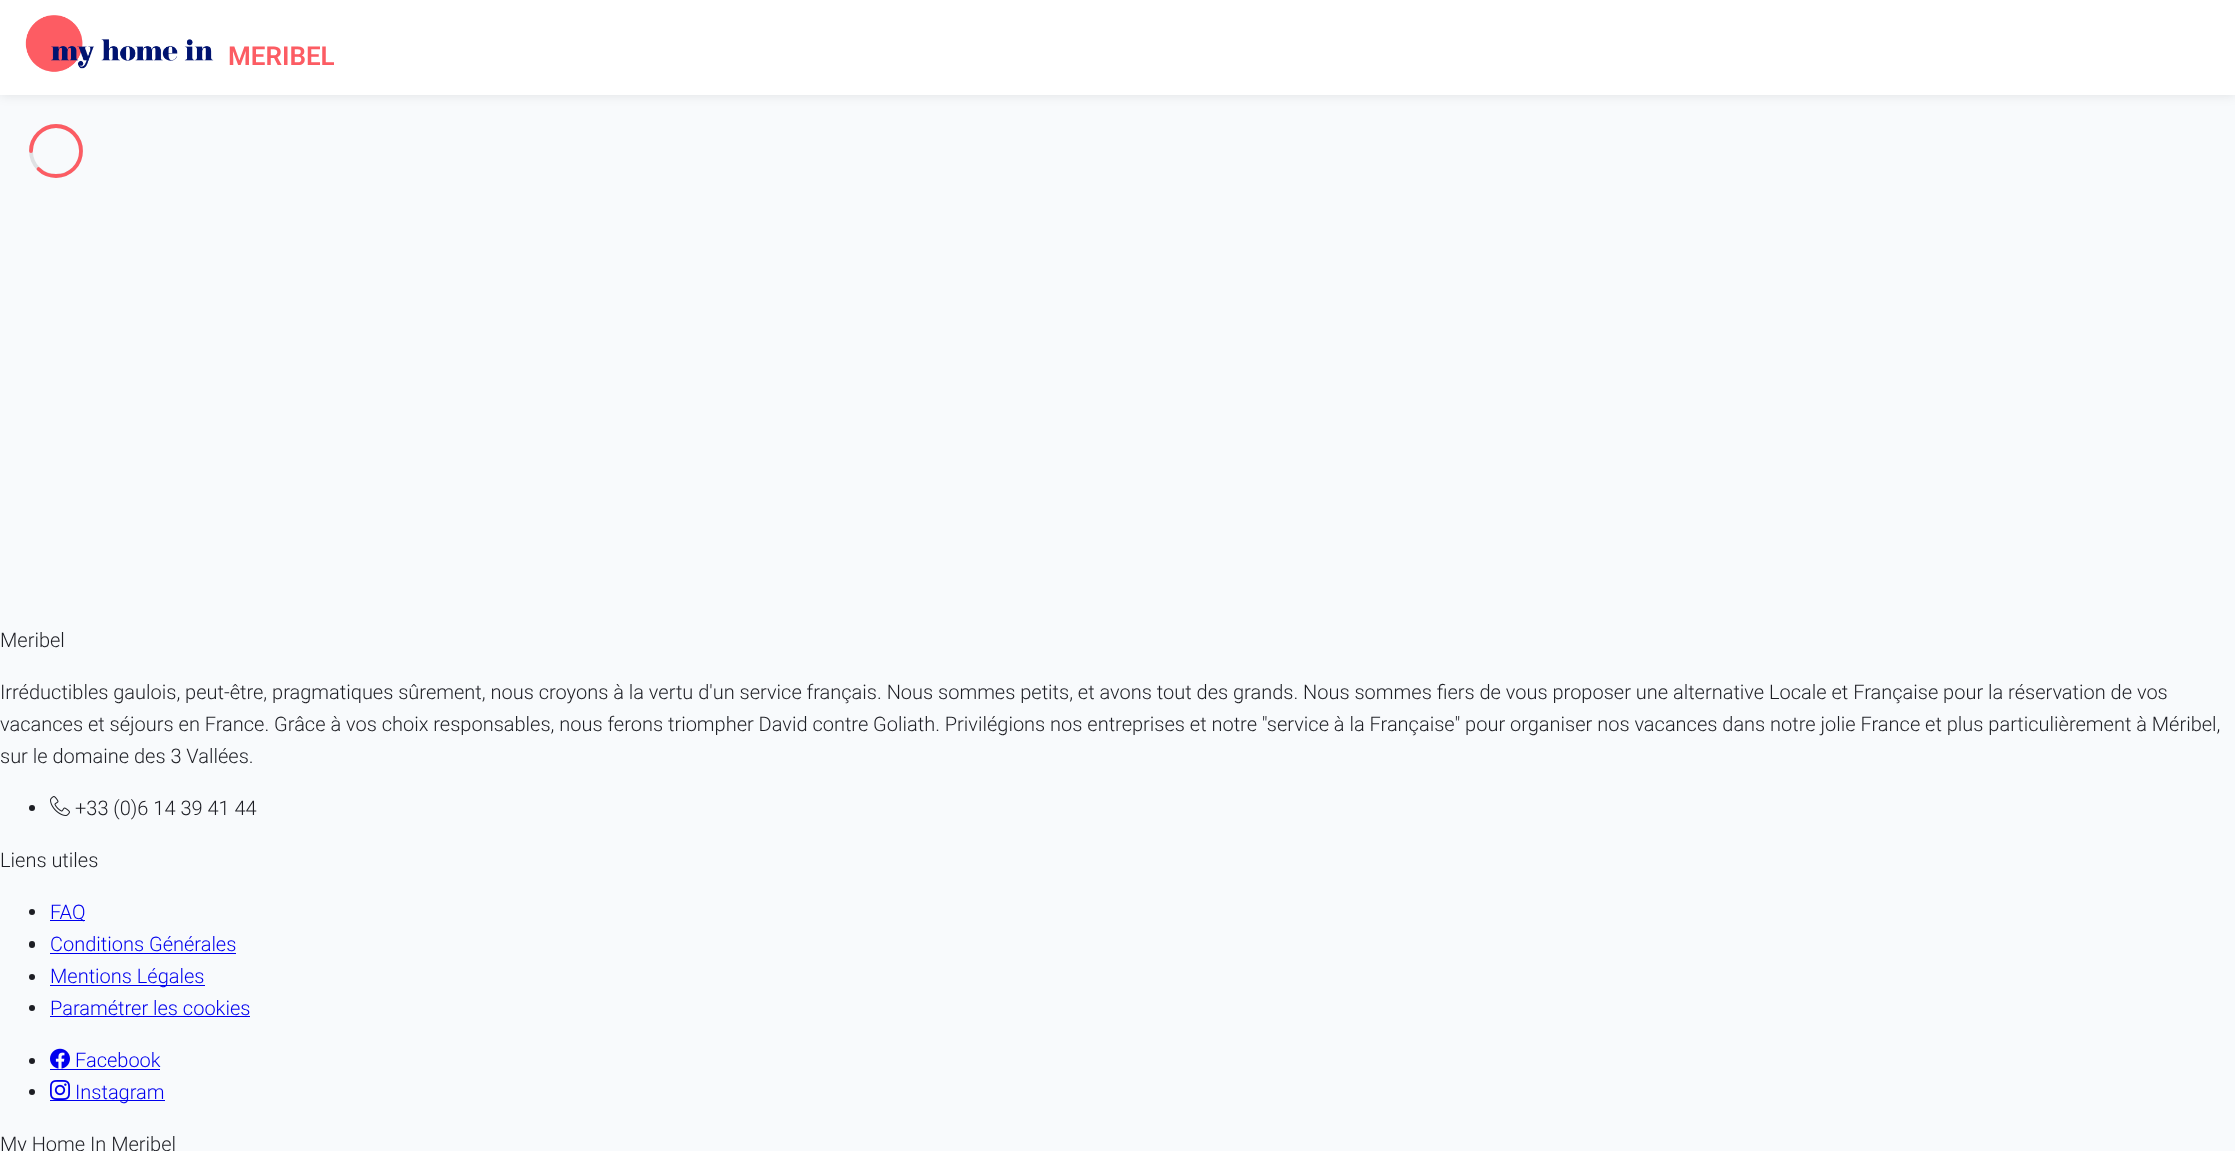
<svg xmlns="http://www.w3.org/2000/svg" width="2235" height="1151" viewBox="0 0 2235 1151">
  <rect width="100%" height="100%" fill="rgb(248,250,252)"/>
  <rect x="0" y="0" width="2235" height="95" fill="rgba(0,0,0,0.1)" filter="blur(6px)"/>
  <rect x="0" y="0" width="2235" height="95" fill="rgb(255,255,255)"/>
  <image x="25" y="15" width="189" height="57" href="pic1.png"/>
  <text x="228" y="65" font-family="Roboto" font-size="26" font-weight="600" fill="rgb(252,92,99)">MERIBEL</text>
  <circle cx="56" cy="151" r="25" fill="none" stroke="rgb(223,225,227)" stroke-width="3.8"/>
  <path d="M31 151C31 137.5 42.5 126 56 126C70 126 81 137.5 81 151C81 165 70 176 56 176C49.5 176 43 173.5 38.5 169" fill="none" stroke="rgb(252,92,99)" stroke-width="3.8" stroke-linecap="round"/>
  <g font-family="Roboto" font-size="20" font-weight="300" fill="rgb(29,30,36)">
    <text x="0" y="647">Meribel</text>
    <text>
      <tspan x="0" y="699">Irréductibles gaulois, peut-être, pragmatiques sûrement, nous croyons à la vertu d'un service français. Nous sommes petits, et avons tout des grands. Nous sommes fiers de vous proposer une alternative Locale et Française pour la réservation de vos</tspan>
      <tspan x="0" y="731">vacances et séjours en France. Grâce à vos choix responsables, nous ferons triompher David contre Goliath. Privilégions nos entreprises et notre "service à la Française" pour organiser nos vacances dans notre jolie France et plus particulièrement à Méribel,</tspan>
      <tspan x="0" y="763">sur le domaine des 3 Vallées.</tspan>
    </text>
  </g>
  <circle cx="32" cy="808" r="3" fill="rgb(29,30,36)"/>
  <image x="50" y="796" width="20" height="20" href="pic2.png"/>
  <g font-family="Roboto" font-size="20" font-weight="300" fill="rgb(29,30,36)">
    <text x="75" y="815">+33 (0)6 14 39 41 44</text>
    <text x="0" y="867">Liens utiles</text>
  </g>
  <circle cx="32" cy="912" r="3" fill="rgb(29,30,36)"/>
  <rect x="50" y="920" width="35" height="1" fill="rgb(0,0,238)"/>
  <text x="50" y="919" font-family="Roboto" font-size="20" font-weight="300" fill="rgb(0,0,238)">FAQ</text>
  <rect x="29" y="941" width="6" height="7" rx="3" fill="rgb(29,30,36)"/>
  <text x="50" y="951" font-family="Roboto" font-size="20" font-weight="300" fill="rgb(0,0,238)">Conditions Générales</text>
  <rect x="50" y="953" width="186" height="1" fill="rgb(0,0,238)"/>
  <circle cx="32" cy="977" r="3" fill="rgb(29,30,36)"/>
  <rect x="50" y="985" width="155" height="1" fill="rgb(0,0,238)"/>
  <text x="50" y="983" font-family="Roboto" font-size="20" font-weight="300" fill="rgb(0,0,238)">Mentions Légales</text>
  <circle cx="32" cy="1008" r="3" fill="rgb(29,30,36)"/>
  <text x="50" y="1015" font-family="Roboto" font-size="20" font-weight="300" fill="rgb(0,0,238)">Paramétrer les cookies</text>
  <rect x="50" y="1016" width="200" height="1" fill="rgb(0,0,238)"/>
  <circle cx="32" cy="1061" r="3" fill="rgb(29,30,36)"/>
  <image x="50" y="1048" width="20" height="21" href="pic3.png"/>
  <text x="75" y="1067" font-family="Roboto" font-size="20" font-weight="300" fill="rgb(0,0,238)">Facebook</text>
  <rect x="50" y="1069" width="110" height="1" fill="rgb(0,0,238)"/>
  <circle cx="32" cy="1092" r="3" fill="rgb(29,30,36)"/>
  <image x="50" y="1080" width="20" height="20" href="pic4.png"/>
  <rect x="50" y="1100" width="115" height="1" fill="rgb(0,0,238)"/>
  <text x="75" y="1099" font-family="Roboto" font-size="20" font-weight="300" fill="rgb(0,0,238)">Instagram</text>
  <text x="0" y="1151" font-family="Roboto" font-size="20" font-weight="300" fill="rgb(29,30,36)">My Home In Meribel</text>
</svg>
